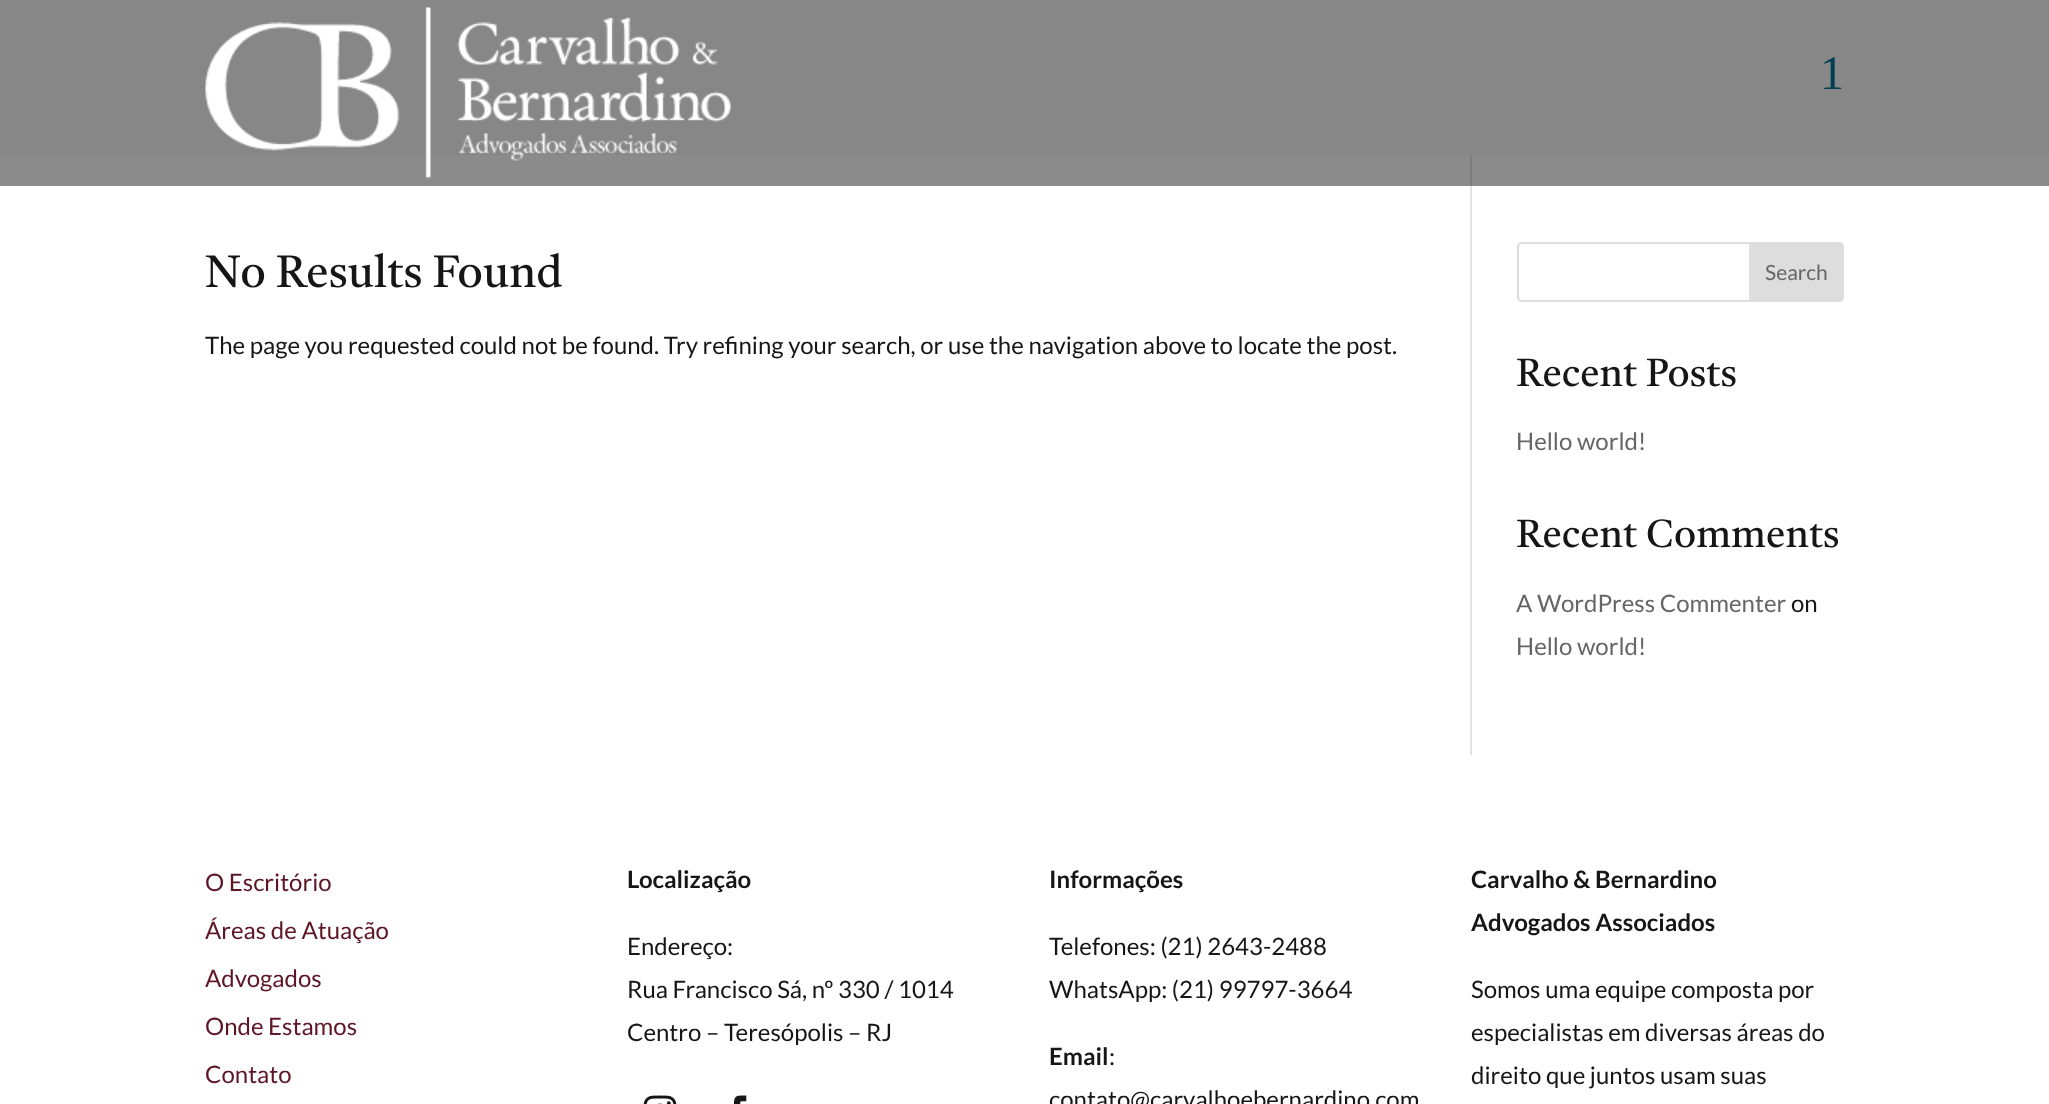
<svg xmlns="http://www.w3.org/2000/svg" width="2049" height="1104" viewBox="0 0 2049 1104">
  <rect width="100%" height="100%" fill="rgb(135,135,135)"/>
  <rect x="0" y="155" width="2049" height="31" fill="rgb(139,139,139)"/>
  <image x="205" y="7" width="526" height="172" href="pic1.png"/>
  <text x="1820" y="89" font-family="Liberation Serif" font-size="48" fill="rgb(0,62,81)">1</text>
  <rect x="0" y="186" width="2049" height="918" fill="rgb(255,255,255)"/>
  <rect x="1470" y="186" width="2" height="569" fill="rgb(226,226,226)"/>
  <rect x="1470" y="155" width="2" height="31" fill="rgb(124,124,124)"/>
  <text x="205" y="287" font-family="Tiro Bangla" font-size="45" fill="rgb(22,22,22)">No Results Found</text>
  <text x="205" y="354" font-family="Lato" font-size="24" fill="rgb(22,22,22)">The page you requested could not be found. Try refining your search, or use the navigation above to locate the post.</text>
  <rect x="1518" y="243" width="325" height="58" rx="4" fill="none" stroke="rgb(221,221,221)" stroke-width="2"/>
  <path d="M1750 243H1839C1841 243 1843 245 1843 247V297C1843 299 1841 301 1839 301H1750Z" fill="rgb(221,221,221)" stroke="rgb(221,221,221)" stroke-width="2"/>
  <text x="1765" y="280" font-family="Lato" font-size="21" fill="rgb(102,102,102)">Search</text>
  <text x="1516" y="386" font-family="Tiro Bangla" font-size="39" fill="rgb(22,22,22)">Recent Posts</text>
  <text x="1516" y="450" font-family="Lato" font-size="24" fill="rgb(102,102,102)">Hello world!</text>
  <text x="1516" y="547" font-family="Tiro Bangla" font-size="39" fill="rgb(22,22,22)">Recent Comments</text>
  <text x="1516" y="612" font-family="Lato" font-size="24" fill="rgb(102,102,102)">A WordPress Commenter</text>
  <text x="1791" y="612" font-family="Lato" font-size="24" fill="rgb(22,22,22)">on</text>
  <text x="1516" y="655" font-family="Lato" font-size="24" fill="rgb(102,102,102)">Hello world!</text>
  <g font-family="Lato" font-size="24" fill="rgb(94,22,37)">
    <text x="205" y="891">O Escritório</text>
    <text x="205" y="939">Áreas de Atuação</text>
    <text x="205" y="987">Advogados</text>
    <text x="205" y="1035">Onde Estamos</text>
    <text x="205" y="1083">Contato</text>
  </g>
  <text x="627" y="888" font-family="Lato" font-size="24" font-weight="bold" fill="rgb(22,22,22)">Localização</text>
  <g font-family="Lato" font-size="24" fill="rgb(22,22,22)">
    <text>
      <tspan x="627" y="955">Endereço:</tspan>
      <tspan x="627" y="998">Rua Francisco Sá, nº 330 / 1014</tspan>
      <tspan x="627" y="1041">Centro – Teresópolis – RJ</tspan>
    </text>
  </g>
  <image x="643" y="1095" width="34" height="9" href="pic2.png"/>
  <image x="733" y="1095" width="14" height="9" href="pic3.png"/>
  <text x="1049" y="888" font-family="Lato" font-size="24" font-weight="bold" fill="rgb(22,22,22)">Informações</text>
  <g font-family="Lato" font-size="24" fill="rgb(22,22,22)">
    <text>
      <tspan x="1049" y="955">Telefones: (21) 2643-2488</tspan>
      <tspan x="1049" y="998">WhatsApp: (21) 99797-3664</tspan>
    </text>
  </g>
  <text x="1049" y="1065" font-family="Lato" font-size="24" font-weight="bold" fill="rgb(22,22,22)">Email</text>
  <g font-family="Lato" font-size="24" fill="rgb(22,22,22)">
    <text x="1109" y="1065">:</text>
    <text x="1049" y="1108">contato@carvalhoebernardino.com</text>
  </g>
  <g font-family="Lato" font-size="24" font-weight="bold" fill="rgb(22,22,22)">
    <text>
      <tspan x="1471" y="888">Carvalho &amp; Bernardino</tspan>
      <tspan x="1471" y="931">Advogados Associados</tspan>
    </text>
  </g>
  <g font-family="Lato" font-size="24" fill="rgb(22,22,22)">
    <text>
      <tspan x="1471" y="998">Somos uma equipe composta por</tspan>
      <tspan x="1471" y="1041">especialistas em diversas áreas do</tspan>
      <tspan x="1471" y="1084">direito que juntos usam suas</tspan>
    </text>
  </g>
</svg>
